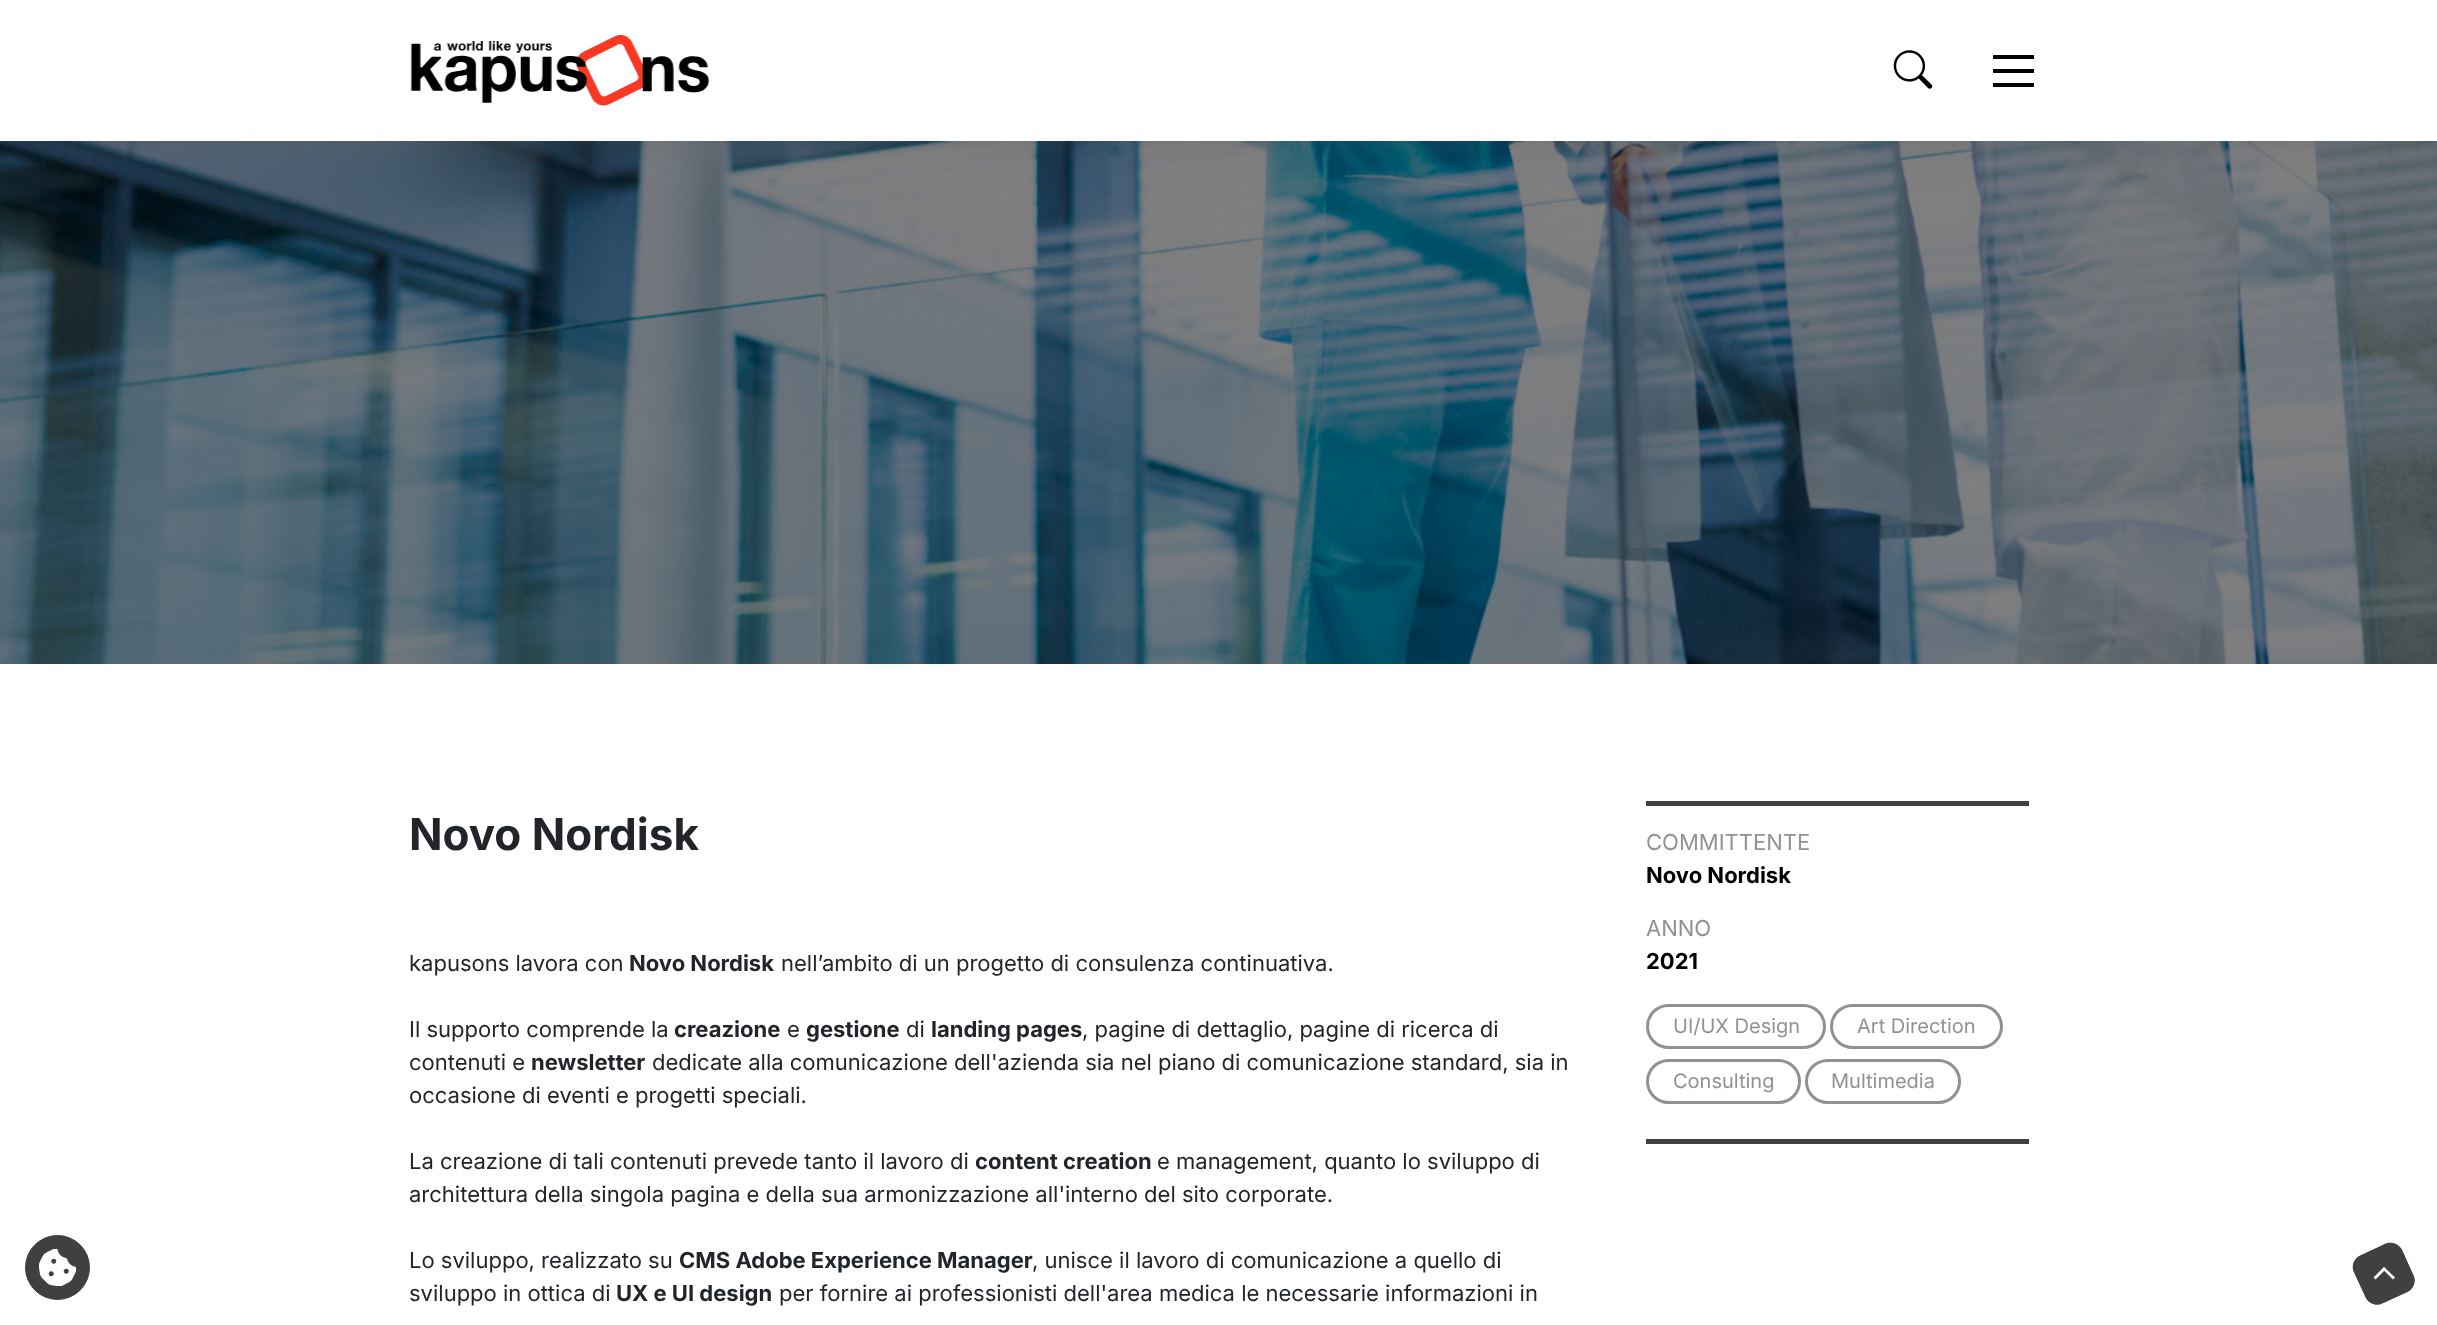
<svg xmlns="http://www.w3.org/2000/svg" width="2437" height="1325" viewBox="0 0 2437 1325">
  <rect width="100%" height="100%" fill="rgb(255,255,255)"/>
  <circle cx="57.5" cy="1267.5" r="32" fill="rgb(64,64,64)" stroke="rgb(64,64,64)"/>
  <image x="39" y="1249" width="37" height="37" href="pic1.png"/>
  <image x="0" y="141" width="2437" height="523" href="pic4.png"/>
  <rect x="0" y="3" width="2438" height="141" fill="rgba(80,80,80,0.21)" filter="blur(12.5px)"/>
  <rect x="0" y="0" width="2437" height="141" fill="rgb(255,255,255)"/>
  <image x="410" y="35" width="299" height="71" href="pic2.png"/>
  <image x="1893" y="50" width="40" height="39" href="pic3.png"/>
  <rect x="1993" y="55" width="41" height="4" fill="rgb(0,0,0)"/>
  <rect x="1993" y="69" width="41" height="4" fill="rgb(0,0,0)"/>
  <rect x="1993" y="83" width="41" height="4" fill="rgb(0,0,0)"/>
  <text x="409" y="850" font-family="Inter" font-size="44" font-weight="bold" fill="rgb(33,37,41)">Novo Nordisk</text>
  <text x="409" y="971" font-family="Inter" font-size="22" fill="rgb(33,37,41)">kapusons lavora con</text>
  <text x="629" y="971" font-family="Inter" font-size="22" font-weight="bold" fill="rgb(33,37,41)">Novo Nordisk</text>
  <g font-family="Inter" font-size="22" fill="rgb(33,37,41)">
    <text x="781" y="971">nell’ambito di un progetto di consulenza continuativa.</text>
    <text x="409" y="1037">Il supporto comprende la</text>
  </g>
  <text x="674" y="1037" font-family="Inter" font-size="22" font-weight="bold" fill="rgb(33,37,41)">creazione</text>
  <text x="787" y="1037" font-family="Inter" font-size="22" fill="rgb(33,37,41)">e</text>
  <text x="806" y="1037" font-family="Inter" font-size="22" font-weight="bold" fill="rgb(33,37,41)">gestione</text>
  <text x="906" y="1037" font-family="Inter" font-size="22" fill="rgb(33,37,41)">di</text>
  <text x="931" y="1037" font-family="Inter" font-size="22" font-weight="bold" fill="rgb(33,37,41)">landing pages</text>
  <g font-family="Inter" font-size="22" fill="rgb(33,37,41)">
    <text x="1082" y="1037">, pagine di dettaglio, pagine di ricerca di</text>
    <text x="409" y="1070">contenuti e</text>
  </g>
  <text x="531" y="1070" font-family="Inter" font-size="22" font-weight="bold" fill="rgb(33,37,41)">newsletter</text>
  <g font-family="Inter" font-size="22" fill="rgb(33,37,41)">
    <text x="652" y="1070">dedicate alla comunicazione dell'azienda sia nel piano di comunicazione standard, sia in</text>
    <text x="409" y="1103">occasione di eventi e progetti speciali.</text>
    <text x="409" y="1169">La creazione di tali contenuti prevede tanto il lavoro di</text>
  </g>
  <text x="975" y="1169" font-family="Inter" font-size="22" font-weight="bold" fill="rgb(33,37,41)">content creation</text>
  <g font-family="Inter" font-size="22" fill="rgb(33,37,41)">
    <text x="1157" y="1169">e management, quanto lo sviluppo di</text>
    <text x="409" y="1202">architettura della singola pagina e della sua armonizzazione all'interno del sito corporate.</text>
    <text x="409" y="1268">Lo sviluppo, realizzato su</text>
  </g>
  <text x="679" y="1268" font-family="Inter" font-size="22" font-weight="bold" fill="rgb(33,37,41)">CMS Adobe Experience Manager</text>
  <g font-family="Inter" font-size="22" fill="rgb(33,37,41)">
    <text x="1032" y="1268">, unisce il lavoro di comunicazione a quello di</text>
    <text x="409" y="1301">sviluppo in ottica di</text>
  </g>
  <text x="616" y="1301" font-family="Inter" font-size="22" font-weight="bold" fill="rgb(33,37,41)">UX e UI design</text>
  <text x="779" y="1301" font-family="Inter" font-size="22" fill="rgb(33,37,41)">per fornire ai professionisti dell'area medica le necessarie informazioni in</text>
  <rect x="1646" y="801" width="383" height="5" fill="rgb(64,64,64)"/>
  <rect x="1646" y="1139" width="383" height="5" fill="rgb(64,64,64)"/>
  <text x="1646" y="850" font-family="Inter" font-size="22" fill="rgb(145,145,145)">COMMITTENTE</text>
  <text x="1646" y="883" font-family="Inter" font-size="22" font-weight="bold" fill="rgb(0,0,0)">Novo Nordisk</text>
  <text x="1646" y="936" font-family="Inter" font-size="22" fill="rgb(145,145,145)">ANNO</text>
  <text x="1646" y="969" font-family="Inter" font-size="22" font-weight="bold" fill="rgb(0,0,0)">2021</text>
  <rect x="1647.5" y="1005.5" width="177" height="42" rx="21" fill="none" stroke="rgb(145,145,145)" stroke-width="3"/>
  <text x="1673" y="1033" font-family="Inter" font-size="20" fill="rgb(145,145,145)">UI/UX Design</text>
  <rect x="1831.5" y="1005.5" width="170" height="42" rx="21" fill="none" stroke="rgb(145,145,145)" stroke-width="3"/>
  <text x="1857" y="1033" font-family="Inter" font-size="20" fill="rgb(145,145,145)">Art Direction</text>
  <rect x="1647.5" y="1060.5" width="152" height="42" rx="21" fill="none" stroke="rgb(145,145,145)" stroke-width="3"/>
  <text x="1673" y="1088" font-family="Inter" font-size="20" fill="rgb(145,145,145)">Consulting</text>
  <rect x="1806.5" y="1060.5" width="153" height="42" rx="21" fill="none" stroke="rgb(145,145,145)" stroke-width="3"/>
  <text x="1831" y="1088" font-family="Inter" font-size="20" fill="rgb(145,145,145)">Multimedia</text>
  <path d="M2360 1256L2385 1244C2391 1241 2399 1244 2402 1250L2413 1275C2416 1281 2414 1289 2407 1292L2382 1303C2376 1306 2369 1304 2366 1297L2354 1272C2351 1266 2354 1259 2360 1256Z" fill="rgb(64,64,64)"/>
  <path d="M2362 1259.5L2387 1248C2391 1246 2396 1248 2398 1252L2409.5 1277C2411.5 1281 2409.5 1286 2405.5 1288L2380.5 1299.5C2376.5 1301.5 2371.5 1299.5 2369.5 1295.5L2358 1270.5C2356 1266.5 2358 1261.5 2362 1259.5Z" fill="none" stroke="rgb(64,64,64)" stroke-width="8.8"/>
  <path d="M2384 1267L2395 1277.5L2393 1279.5L2382.5 1269Z" fill="rgb(255,255,255)"/>
  <path d="M2384 1267L2386 1269L2375.5 1279.5L2373.5 1277.5Z" fill="rgb(255,255,255)"/>
</svg>
